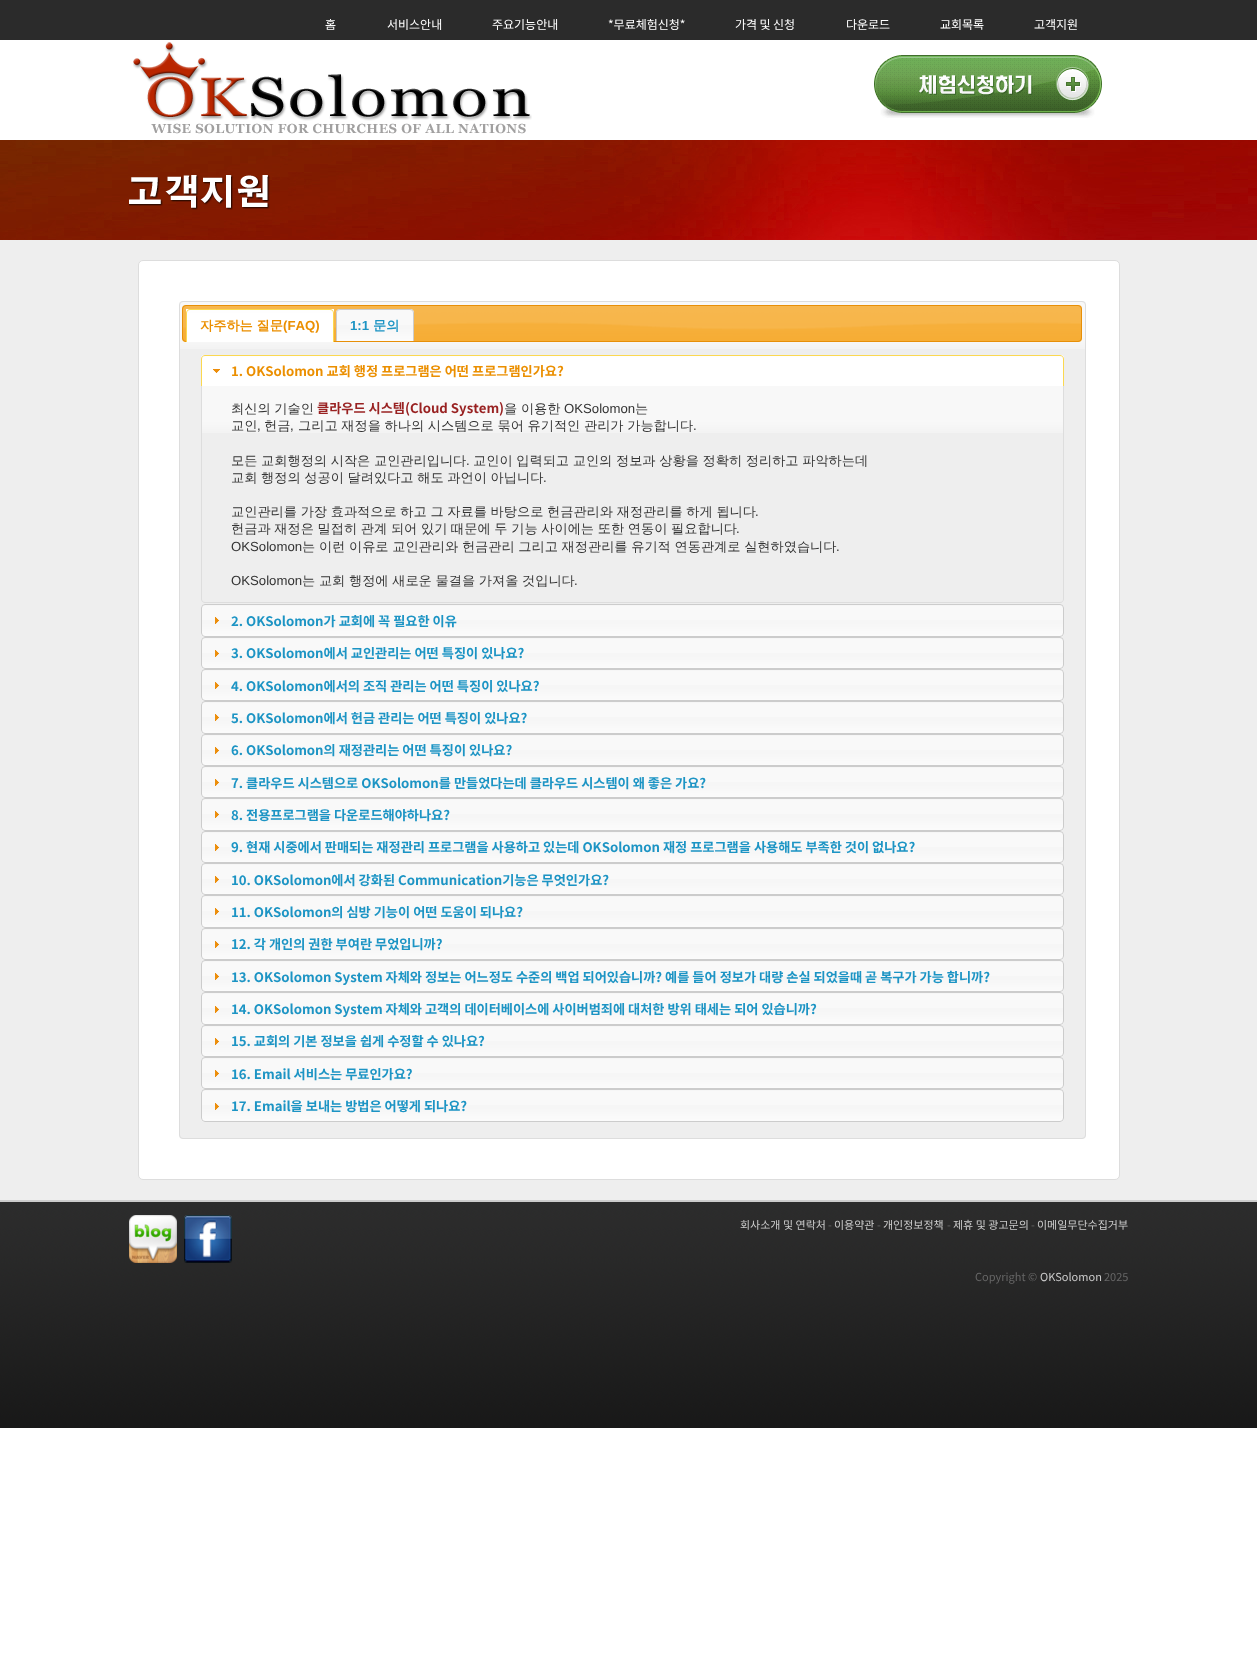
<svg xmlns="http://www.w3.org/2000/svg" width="1257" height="1663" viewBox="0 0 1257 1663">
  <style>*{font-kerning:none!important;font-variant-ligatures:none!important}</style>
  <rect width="100%" height="100%" fill="rgb(255,255,255)"/>
  <rect x="0" y="0" width="1257" height="40" fill="rgb(43,43,43)"/>
  <g font-family="Noto Sans KR" font-size="12" fill="rgb(255,255,255)">
    <text x="325" y="29">홈</text>
    <text x="387" y="29">서비스안내</text>
    <text x="492" y="29">주요기능안내</text>
    <text x="608" y="29">*무료체험신청*</text>
    <text x="735" y="29" word-spacing="-0.25">가격 및 신청</text>
    <text x="846" y="29">다운로드</text>
    <text x="940" y="29">교회목록</text>
    <text x="1034" y="29">고객지원</text>
  </g>
  <image x="133" y="42" width="399" height="92" href="pic1.png"/>
  <image x="874" y="55" width="228" height="63" href="pic2.png"/>
  <image x="0" y="140" width="1257" height="100" href="pic3.png"/>
  <image x="129" y="175" width="141" height="35" href="pic4.png"/>
  <rect x="0" y="240" width="1257" height="960" fill="rgb(238,238,238)"/>
  <rect x="138.5" y="260.5" width="981" height="919" rx="4.5" fill="rgb(255,255,255)" stroke="rgb(221,221,221)"/>
  <rect x="179" y="301" width="907" height="838" rx="4" fill="rgb(238,238,238)"/>
  <image x="179" y="302" width="907" height="47" href="pic5.png"/>
  <rect x="179.5" y="301.5" width="906" height="837" rx="3.5" fill="none" stroke="rgb(221,221,221)"/>
  <image x="182" y="305" width="900" height="37" href="pic6.png"/>
  <rect x="182.5" y="305.5" width="899" height="36" rx="3.5" fill="none" stroke="rgb(231,143,8)"/>
  <rect x="187" y="313" width="146" height="29" fill="rgb(255,255,255)"/>
  <rect x="186" y="309" width="148" height="4" fill="rgb(254,254,254)"/>
  <path d="M190 309H330C332 309 334 311 334 313V342H186V313C186 311 188 309 190 309ZM190 310H330C332 310 333 311 333 313V342H187V313C187 311 188 310 190 310Z" fill="rgb(251,216,80)" fill-rule="evenodd"/>
  <text x="200" y="330" word-spacing="-0.25" font-family="WenQuanYi Zen Hei" font-size="13.2" font-weight="bold" fill="rgb(235,143,0)">자주하는 질문</text>
  <text x="283" y="330" font-family="Liberation Sans" font-size="13.2" font-weight="bold" fill="rgb(235,143,0)">(FAQ)</text>
  <image x="336" y="309" width="78" height="32" href="pic7.png"/>
  <path d="M340 309H410C412 309 414 311 414 313V341H336V313C336 311 338 309 340 309ZM340 310H410C412 310 413 311 413 313V341H337V313C337 311 338 310 340 310Z" fill="rgb(204,204,204)" fill-rule="evenodd"/>
  <text x="350" y="330" font-family="Liberation Sans" font-size="13.2" font-weight="bold" fill="rgb(28,148,196)">1:1</text>
  <text x="373" y="330" font-family="WenQuanYi Zen Hei" font-size="13.2" font-weight="bold" fill="rgb(28,148,196)">문의</text>
  <path d="M205 355H1060C1062 355 1064 357 1064 359V387H201V359C201 357 203 355 205 355Z" fill="rgb(255,255,255)"/>
  <image x="201" y="355" width="863" height="2" href="pic8.png"/>
  <path d="M205 355.5H1060C1062 355.5 1063.5 357 1063.5 359V386.5H201.5V359C201.5 357 203 355.5 205 355.5Z" fill="none" stroke="rgb(251,216,80)"/>
  <image x="213" y="369" width="7" height="4" href="pic9.png"/>
  <text x="231" y="376" font-family="Noto Sans KR" font-size="13.2" font-weight="bold" fill="rgb(235,143,0)">1. OKSolomon 교회 행정 프로그램은 어떤 프로그램인가요?</text>
  <path d="M201 386H1064V599C1064 601 1062 603 1060 603H205C203 603 201 601 201 599Z" fill="rgb(238,238,238)"/>
  <image x="202" y="386" width="861" height="47" href="pic10.png"/>
  <path d="M201 386H1064V599C1064 601 1062 603 1060 603H205C203 603 201 601 201 599ZM202 386H1063V599C1063 601 1062 602 1060 602H205C203 602 202 601 202 599Z" fill="rgb(221,221,221)" fill-rule="evenodd"/>
  <text x="231" y="413" word-spacing="-0.25" font-family="WenQuanYi Zen Hei" font-size="13.2" font-weight="500" fill="rgb(51,51,51)">최신의 기술인</text>
  <text x="317" y="413" font-family="Noto Sans KR" font-size="13.2" font-weight="bold" fill="rgb(153,34,34)">클라우드 시스템(Cloud System)</text>
  <text x="504" y="413" word-spacing="-0.25" font-family="WenQuanYi Zen Hei" font-size="13.2" font-weight="500" fill="rgb(51,51,51)">을 이용한</text>
  <text x="564" y="413" font-family="Liberation Sans" font-size="13.2" fill="rgb(51,51,51)">OKSolomon</text>
  <g font-family="WenQuanYi Zen Hei" font-size="13.2" font-weight="500" fill="rgb(51,51,51)">
    <text x="635" y="413">는</text>
    <text x="231" y="430">교인</text>
  </g>
  <text x="257" y="430" font-family="Liberation Sans" font-size="13.2" fill="rgb(51,51,51)">,</text>
  <text x="264" y="430" font-family="WenQuanYi Zen Hei" font-size="13.2" font-weight="500" fill="rgb(51,51,51)">헌금</text>
  <text x="290" y="430" font-family="Liberation Sans" font-size="13.2" fill="rgb(51,51,51)">,</text>
  <text x="298" y="430" word-spacing="-0.25" font-family="WenQuanYi Zen Hei" font-size="13.2" font-weight="500" fill="rgb(51,51,51)">그리고 재정을 하나의 시스템으로 묶어 유기적인 관리가 가능합니다</text>
  <text x="693" y="430" font-family="Liberation Sans" font-size="13.2" fill="rgb(51,51,51)">.</text>
  <text x="231" y="465" word-spacing="-0.25" font-family="WenQuanYi Zen Hei" font-size="13.2" font-weight="500" fill="rgb(51,51,51)">모든 교회행정의 시작은 교인관리입니다</text>
  <text x="466" y="465" font-family="Liberation Sans" font-size="13.2" fill="rgb(51,51,51)">.</text>
  <g font-family="WenQuanYi Zen Hei" font-size="13.2" font-weight="500" fill="rgb(51,51,51)">
    <text x="473" y="465" word-spacing="-0.25">교인이 입력되고 교인의 정보과 상황을 정확히 정리하고 파악하는데</text>
    <text x="231" y="482" word-spacing="-0.25">교회 행정의 성공이 달려있다고 해도 과언이 아닙니다</text>
  </g>
  <text x="543" y="482" font-family="Liberation Sans" font-size="13.2" fill="rgb(51,51,51)">.</text>
  <text x="231" y="516" word-spacing="-0.25" font-family="WenQuanYi Zen Hei" font-size="13.2" font-weight="500" fill="rgb(51,51,51)">교인관리를 가장 효과적으로 하고 그 자료를 바탕으로 헌금관리와 재정관리를 하게 됩니다</text>
  <text x="755" y="516" font-family="Liberation Sans" font-size="13.2" fill="rgb(51,51,51)">.</text>
  <text x="231" y="533" word-spacing="-0.25" font-family="WenQuanYi Zen Hei" font-size="13.2" font-weight="500" fill="rgb(51,51,51)">헌금과 재정은 밀접히 관계 되어 있기 때문에 두 기능 사이에는 또한 연동이 필요합니다</text>
  <g font-family="Liberation Sans" font-size="13.2" fill="rgb(51,51,51)">
    <text x="736" y="533">.</text>
    <text x="231" y="551">OKSolomon</text>
  </g>
  <text x="302" y="551" word-spacing="-0.25" font-family="WenQuanYi Zen Hei" font-size="13.2" font-weight="500" fill="rgb(51,51,51)">는 이런 이유로 교인관리와 헌금관리 그리고 재정관리를 유기적 연동관계로 실현하였습니다</text>
  <g font-family="Liberation Sans" font-size="13.2" fill="rgb(51,51,51)">
    <text x="836" y="551">.</text>
    <text x="231" y="585">OKSolomon</text>
  </g>
  <text x="302" y="585" word-spacing="-0.25" font-family="WenQuanYi Zen Hei" font-size="13.2" font-weight="500" fill="rgb(51,51,51)">는 교회 행정에 새로운 물결을 가져올 것입니다</text>
  <text x="574" y="585" font-family="Liberation Sans" font-size="13.2" fill="rgb(51,51,51)">.</text>
  <rect x="201" y="604" width="863" height="33" rx="4" fill="rgb(246,246,246)"/>
  <image x="201" y="606" width="863" height="31" href="pic11.png"/>
  <rect x="201.5" y="604.5" width="862" height="32" rx="3.5" fill="none" stroke="rgb(204,204,204)"/>
  <image x="215" y="617" width="4" height="7" href="pic12.png"/>
  <text x="231" y="626" font-family="Noto Sans KR" font-size="13.2" font-weight="bold" fill="rgb(28,148,196)">2. OKSolomon가 교회에 꼭 필요한 이유</text>
  <rect x="201" y="637" width="863" height="32" rx="4" fill="rgb(246,246,246)"/>
  <image x="201" y="639" width="863" height="30" href="pic13.png"/>
  <rect x="201.5" y="637.5" width="862" height="31" rx="3.5" fill="none" stroke="rgb(204,204,204)"/>
  <image x="215" y="650" width="4" height="7" href="pic12.png"/>
  <text x="231" y="658" font-family="Noto Sans KR" font-size="13.2" font-weight="bold" fill="rgb(28,148,196)">3. OKSolomon에서 교인관리는 어떤 특징이 있나요?</text>
  <rect x="201" y="669" width="863" height="32" rx="4" fill="rgb(246,246,246)"/>
  <image x="201" y="671" width="863" height="30" href="pic13.png"/>
  <rect x="201.5" y="669.5" width="862" height="31" rx="3.5" fill="none" stroke="rgb(204,204,204)"/>
  <image x="215" y="682" width="4" height="7" href="pic12.png"/>
  <text x="231" y="691" font-family="Noto Sans KR" font-size="13.2" font-weight="bold" fill="rgb(28,148,196)">4. OKSolomon에서의 조직 관리는 어떤 특징이 있나요?</text>
  <rect x="201" y="701" width="863" height="33" rx="4" fill="rgb(246,246,246)"/>
  <image x="201" y="703" width="863" height="31" href="pic11.png"/>
  <rect x="201.5" y="701.5" width="862" height="32" rx="3.5" fill="none" stroke="rgb(204,204,204)"/>
  <image x="215" y="714" width="4" height="7" href="pic12.png"/>
  <text x="231" y="723" font-family="Noto Sans KR" font-size="13.2" font-weight="bold" fill="rgb(28,148,196)">5. OKSolomon에서 헌금 관리는 어떤 특징이 있나요?</text>
  <rect x="201" y="734" width="863" height="32" rx="4" fill="rgb(246,246,246)"/>
  <image x="201" y="736" width="863" height="30" href="pic14.png"/>
  <rect x="201.5" y="734.5" width="862" height="31" rx="3.5" fill="none" stroke="rgb(204,204,204)"/>
  <image x="215" y="747" width="4" height="7" href="pic12.png"/>
  <text x="231" y="755" font-family="Noto Sans KR" font-size="13.2" font-weight="bold" fill="rgb(28,148,196)">6. OKSolomon의 재정관리는 어떤 특징이 있나요?</text>
  <rect x="201" y="766" width="863" height="32" rx="4" fill="rgb(246,246,246)"/>
  <image x="201" y="768" width="863" height="30" href="pic13.png"/>
  <rect x="201.5" y="766.5" width="862" height="31" rx="3.5" fill="none" stroke="rgb(204,204,204)"/>
  <image x="215" y="779" width="4" height="7" href="pic12.png"/>
  <text x="231" y="788" font-family="Noto Sans KR" font-size="13.2" font-weight="bold" fill="rgb(28,148,196)">7. 클라우드 시스템으로 OKSolomon를 만들었다는데 클라우드 시스템이 왜 좋은 가요?</text>
  <rect x="201" y="798" width="863" height="33" rx="4" fill="rgb(246,246,246)"/>
  <image x="201" y="800" width="863" height="31" href="pic11.png"/>
  <rect x="201.5" y="798.5" width="862" height="32" rx="3.5" fill="none" stroke="rgb(204,204,204)"/>
  <image x="215" y="811" width="4" height="7" href="pic12.png"/>
  <text x="231" y="820" font-family="Noto Sans KR" font-size="13.2" font-weight="bold" fill="rgb(28,148,196)">8. 전용프로그램을 다운로드해야하나요?</text>
  <rect x="201" y="831" width="863" height="32" rx="4" fill="rgb(246,246,246)"/>
  <image x="201" y="833" width="863" height="30" href="pic13.png"/>
  <rect x="201.5" y="831.5" width="862" height="31" rx="3.5" fill="none" stroke="rgb(204,204,204)"/>
  <image x="215" y="844" width="4" height="7" href="pic12.png"/>
  <text x="231" y="852" font-family="Noto Sans KR" font-size="13.2" font-weight="bold" fill="rgb(28,148,196)">9. 현재 시중에서 판매되는 재정관리 프로그램을 사용하고 있는데 OKSolomon 재정 프로그램을 사용해도 부족한 것이 없나요?</text>
  <rect x="201" y="863" width="863" height="32" rx="4" fill="rgb(246,246,246)"/>
  <image x="201" y="865" width="863" height="30" href="pic13.png"/>
  <rect x="201.5" y="863.5" width="862" height="31" rx="3.5" fill="none" stroke="rgb(204,204,204)"/>
  <image x="215" y="876" width="4" height="7" href="pic12.png"/>
  <text x="231" y="885" font-family="Noto Sans KR" font-size="13.2" font-weight="bold" fill="rgb(28,148,196)">10. OKSolomon에서 강화된 Communication기능은 무엇인가요?</text>
  <rect x="201" y="895" width="863" height="33" rx="4" fill="rgb(246,246,246)"/>
  <image x="201" y="897" width="863" height="31" href="pic11.png"/>
  <rect x="201.5" y="895.5" width="862" height="32" rx="3.5" fill="none" stroke="rgb(204,204,204)"/>
  <image x="215" y="908" width="4" height="7" href="pic12.png"/>
  <text x="231" y="917" font-family="Noto Sans KR" font-size="13.2" font-weight="bold" fill="rgb(28,148,196)">11. OKSolomon의 심방 기능이 어떤 도움이 되나요?</text>
  <rect x="201" y="928" width="863" height="32" rx="4" fill="rgb(246,246,246)"/>
  <image x="201" y="930" width="863" height="30" href="pic13.png"/>
  <rect x="201.5" y="928.5" width="862" height="31" rx="3.5" fill="none" stroke="rgb(204,204,204)"/>
  <image x="215" y="941" width="4" height="7" href="pic12.png"/>
  <text x="231" y="949" font-family="Noto Sans KR" font-size="13.2" font-weight="bold" fill="rgb(28,148,196)">12. 각 개인의 권한 부여란 무었입니까?</text>
  <rect x="201" y="960" width="863" height="32" rx="4" fill="rgb(246,246,246)"/>
  <image x="201" y="962" width="863" height="30" href="pic13.png"/>
  <rect x="201.5" y="960.5" width="862" height="31" rx="3.5" fill="none" stroke="rgb(204,204,204)"/>
  <image x="215" y="973" width="4" height="7" href="pic12.png"/>
  <text x="231" y="982" font-family="Noto Sans KR" font-size="13.2" font-weight="bold" fill="rgb(28,148,196)">13. OKSolomon System 자체와 정보는 어느정도 수준의 백업 되어있습니까? 예를 들어 정보가 대량 손실 되었을때 곧 복구가 가능 합니까?</text>
  <rect x="201" y="992" width="863" height="33" rx="4" fill="rgb(246,246,246)"/>
  <image x="201" y="994" width="863" height="31" href="pic11.png"/>
  <rect x="201.5" y="992.5" width="862" height="32" rx="3.5" fill="none" stroke="rgb(204,204,204)"/>
  <image x="215" y="1006" width="4" height="7" href="pic15.png"/>
  <text x="231" y="1014" font-family="Noto Sans KR" font-size="13.2" font-weight="bold" fill="rgb(28,148,196)">14. OKSolomon System 자체와 고객의 데이터베이스에 사이버범죄에 대처한 방위 태세는 되어 있습니까?</text>
  <rect x="201" y="1025" width="863" height="32" rx="4" fill="rgb(246,246,246)"/>
  <image x="201" y="1027" width="863" height="30" href="pic13.png"/>
  <rect x="201.5" y="1025.5" width="862" height="31" rx="3.5" fill="none" stroke="rgb(204,204,204)"/>
  <image x="215" y="1038" width="4" height="7" href="pic12.png"/>
  <text x="231" y="1046" font-family="Noto Sans KR" font-size="13.2" font-weight="bold" fill="rgb(28,148,196)">15. 교회의 기본 정보을 쉽게 수정할 수 있나요?</text>
  <rect x="201" y="1057" width="863" height="32" rx="4" fill="rgb(246,246,246)"/>
  <image x="201" y="1059" width="863" height="30" href="pic13.png"/>
  <rect x="201.5" y="1057.5" width="862" height="31" rx="3.5" fill="none" stroke="rgb(204,204,204)"/>
  <image x="215" y="1070" width="4" height="7" href="pic12.png"/>
  <text x="231" y="1079" font-family="Noto Sans KR" font-size="13.2" font-weight="bold" fill="rgb(28,148,196)">16. Email 서비스는 무료인가요?</text>
  <rect x="201" y="1089" width="863" height="33" rx="4" fill="rgb(246,246,246)"/>
  <image x="201" y="1091" width="863" height="31" href="pic11.png"/>
  <rect x="201.5" y="1089.5" width="862" height="32" rx="3.5" fill="none" stroke="rgb(204,204,204)"/>
  <image x="215" y="1103" width="4" height="7" href="pic15.png"/>
  <text x="231" y="1111" font-family="Noto Sans KR" font-size="13.2" font-weight="bold" fill="rgb(28,148,196)">17. Email을 보내는 방법은 어떻게 되나요?</text>
  <image x="0" y="1202" width="1257" height="226" href="pic16.png"/>
  <rect x="0" y="1200" width="1257" height="2" fill="rgb(204,204,204)"/>
  <image x="129" y="1215" width="48" height="48" href="pic17.png"/>
  <image x="184" y="1215" width="48" height="48" href="pic18.png"/>
  <text x="740" y="1229" font-family="Noto Sans KR" font-size="11" fill="rgb(204,204,204)">회사소개 및 연락처</text>
  <text x="828" y="1229" font-family="Noto Sans KR" font-size="11" fill="rgb(102,102,102)">-</text>
  <text x="834" y="1229" font-family="Noto Sans KR" font-size="11" fill="rgb(204,204,204)">이용약관</text>
  <text x="877" y="1229" font-family="Noto Sans KR" font-size="11" fill="rgb(102,102,102)">-</text>
  <text x="883" y="1229" font-family="Noto Sans KR" font-size="11" fill="rgb(204,204,204)">개인정보정책</text>
  <text x="947" y="1229" font-family="Noto Sans KR" font-size="11" fill="rgb(102,102,102)">-</text>
  <text x="953" y="1229" font-family="Noto Sans KR" font-size="11" fill="rgb(204,204,204)">제휴 및 광고문의</text>
  <text x="1031" y="1229" font-family="Noto Sans KR" font-size="11" fill="rgb(102,102,102)">-</text>
  <text x="1037" y="1229" font-family="Noto Sans KR" font-size="11" fill="rgb(204,204,204)">이메일무단수집거부</text>
  <text x="975" y="1281" font-family="Noto Sans KR" font-size="11" fill="rgb(102,102,102)">Copyright ©</text>
  <text x="1040" y="1281" font-family="Noto Sans KR" font-size="11" fill="rgb(204,204,204)">OKSolomon</text>
  <text x="1104" y="1281" font-family="Noto Sans KR" font-size="11" fill="rgb(102,102,102)">2025</text>
</svg>
